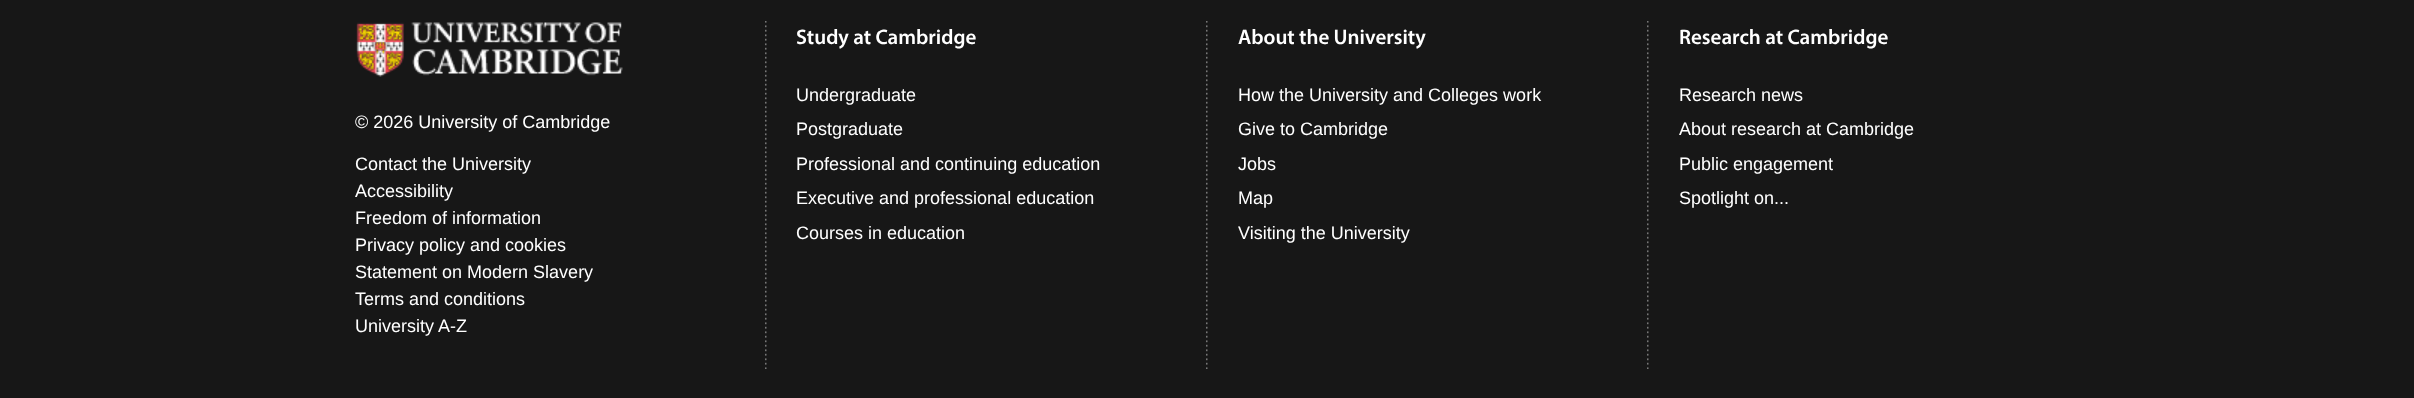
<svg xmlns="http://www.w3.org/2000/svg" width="2414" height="398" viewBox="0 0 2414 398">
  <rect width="100%" height="100%" fill="rgb(23,23,23)"/>
  <image x="765" y="21" width="2" height="348" href="pic1.png"/>
  <image x="356" y="22" width="267" height="55" href="pic2.png"/>
  <g font-family="Liberation Sans" font-size="18" fill="rgb(255,255,255)">
    <text x="355" y="128">© 2026 University of Cambridge</text>
    <text>
      <tspan x="355" y="170">Contact the University</tspan>
      <tspan x="355" y="197">Accessibility</tspan>
      <tspan x="355" y="224">Freedom of information</tspan>
      <tspan x="355" y="251">Privacy policy and cookies</tspan>
      <tspan x="355" y="278">Statement on Modern Slavery</tspan>
      <tspan x="355" y="305">Terms and conditions</tspan>
      <tspan x="355" y="332">University A-Z</tspan>
    </text>
  </g>
  <image x="1206" y="21" width="2" height="348" href="pic1.png"/>
  <text x="796" y="44" font-family="Myriad" font-size="21" font-weight="600" fill="rgb(255,255,255)">Study at Cambridge</text>
  <g font-family="Liberation Sans" font-size="18" fill="rgb(255,255,255)">
    <text>
      <tspan x="796" y="101">Undergraduate</tspan>
      <tspan x="796" y="135">Postgraduate</tspan>
      <tspan x="796" y="170">Professional and continuing education</tspan>
      <tspan x="796" y="204">Executive and professional education</tspan>
      <tspan x="796" y="239">Courses in education</tspan>
    </text>
  </g>
  <image x="1647" y="21" width="2" height="348" href="pic1.png"/>
  <text x="1238" y="44" font-family="Myriad" font-size="21" font-weight="600" fill="rgb(255,255,255)">About the University</text>
  <g font-family="Liberation Sans" font-size="18" fill="rgb(255,255,255)">
    <text>
      <tspan x="1238" y="101">How the University and Colleges work</tspan>
      <tspan x="1238" y="135">Give to Cambridge</tspan>
      <tspan x="1238" y="170">Jobs</tspan>
      <tspan x="1238" y="204">Map</tspan>
      <tspan x="1238" y="239">Visiting the University</tspan>
    </text>
  </g>
  <text x="1679" y="44" font-family="Myriad" font-size="21" font-weight="600" fill="rgb(255,255,255)">Research at Cambridge</text>
  <g font-family="Liberation Sans" font-size="18" fill="rgb(255,255,255)">
    <text>
      <tspan x="1679" y="101">Research news</tspan>
      <tspan x="1679" y="135">About research at Cambridge</tspan>
      <tspan x="1679" y="170">Public engagement</tspan>
      <tspan x="1679" y="204">Spotlight on...</tspan>
    </text>
  </g>
</svg>
